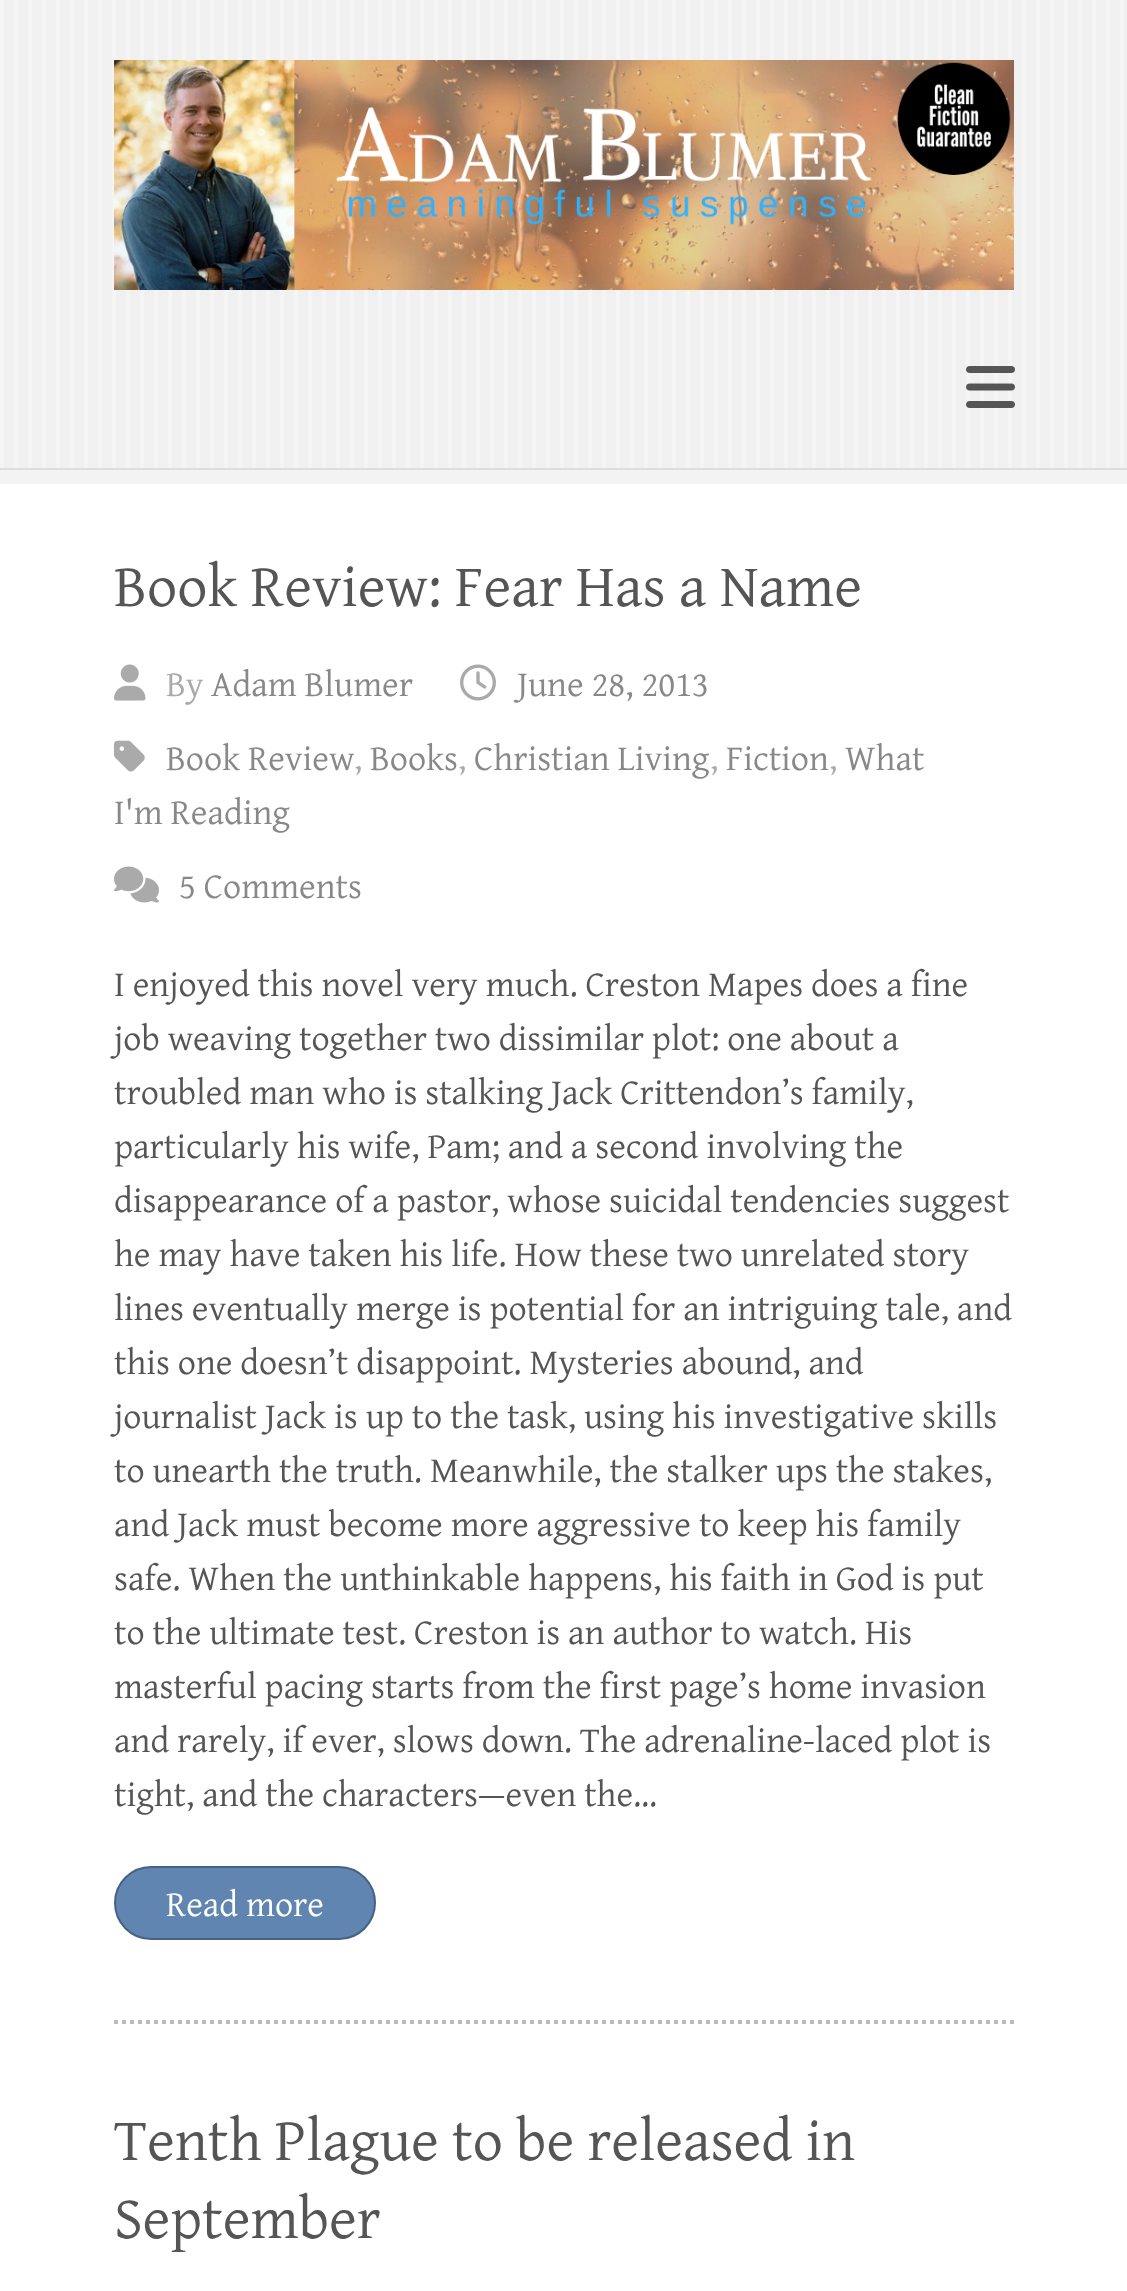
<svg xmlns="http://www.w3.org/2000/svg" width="1127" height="2291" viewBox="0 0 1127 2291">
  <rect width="100%" height="100%" fill="rgb(255,255,255)"/>
  <rect x="0" y="470" width="1127" height="14" fill="rgb(243,243,243)"/>
  <image x="0" y="0" width="1127" height="468" href="pic1.png"/>
  <rect x="0" y="468" width="1127" height="2" fill="rgb(221,221,221)"/>
  <image x="114" y="60" width="900" height="230" href="pic2.png"/>
  <image x="966" y="366" width="49" height="42" href="pic3.png"/>
  <text x="114" y="606" font-family="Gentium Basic" font-size="60" fill="rgb(85,85,85)">Book Review: Fear Has a Name</text>
  <image x="114" y="664" width="32" height="37" href="pic4.png"/>
  <text x="166" y="696" font-family="Gentium Basic" font-size="36" fill="rgb(170,170,170)">By</text>
  <text x="211" y="696" font-family="Gentium Basic" font-size="36" fill="rgb(136,136,136)">Adam Blumer</text>
  <image x="460" y="664" width="36" height="37" href="pic5.png"/>
  <text x="517" y="696" font-family="Gentium Basic" font-size="36" fill="rgb(136,136,136)">June 28, 2013</text>
  <image x="114" y="740" width="31" height="32" href="pic6.png"/>
  <text x="166" y="770" font-family="Gentium Basic" font-size="36" fill="rgb(136,136,136)">Book Review</text>
  <text x="354" y="770" font-family="Gentium Basic" font-size="36" fill="rgb(170,170,170)">,</text>
  <text x="370" y="770" font-family="Gentium Basic" font-size="36" fill="rgb(136,136,136)">Books</text>
  <text x="458" y="770" font-family="Gentium Basic" font-size="36" fill="rgb(170,170,170)">,</text>
  <text x="474" y="770" font-family="Gentium Basic" font-size="36" fill="rgb(136,136,136)">Christian Living</text>
  <text x="710" y="770" font-family="Gentium Basic" font-size="36" fill="rgb(170,170,170)">,</text>
  <text x="726" y="770" font-family="Gentium Basic" font-size="36" fill="rgb(136,136,136)">Fiction</text>
  <text x="829" y="770" font-family="Gentium Basic" font-size="36" fill="rgb(170,170,170)">,</text>
  <g font-family="Gentium Basic" font-size="36" fill="rgb(136,136,136)">
    <text x="845" y="770">What</text>
    <text x="114" y="824">I'm Reading</text>
  </g>
  <image x="114" y="866" width="45" height="37" href="pic7.png"/>
  <text x="179" y="898" font-family="Gentium Basic" font-size="36" fill="rgb(136,136,136)">5 Comments</text>
  <g font-family="Gentium Basic" font-size="36" fill="rgb(85,85,85)">
    <text>
      <tspan x="114" y="996">I enjoyed this novel very much. Creston Mapes does a fine</tspan>
      <tspan x="114" y="1050">job weaving together two dissimilar plot: one about a</tspan>
      <tspan x="114" y="1104">troubled man who is stalking Jack Crittendon’s family,</tspan>
      <tspan x="114" y="1158">particularly his wife, Pam; and a second involving the</tspan>
      <tspan x="114" y="1212">disappearance of a pastor, whose suicidal tendencies suggest</tspan>
      <tspan x="114" y="1266">he may have taken his life. How these two unrelated story</tspan>
      <tspan x="114" y="1320">lines eventually merge is potential for an intriguing tale, and</tspan>
      <tspan x="114" y="1374">this one doesn’t disappoint. Mysteries abound, and</tspan>
      <tspan x="114" y="1428">journalist Jack is up to the task, using his investigative skills</tspan>
      <tspan x="114" y="1482">to unearth the truth. Meanwhile, the stalker ups the stakes,</tspan>
      <tspan x="114" y="1536">and Jack must become more aggressive to keep his family</tspan>
      <tspan x="114" y="1590">safe. When the unthinkable happens, his faith in God is put</tspan>
      <tspan x="114" y="1644">to the ultimate test. Creston is an author to watch. His</tspan>
      <tspan x="114" y="1698">masterful pacing starts from the first page’s home invasion</tspan>
      <tspan x="114" y="1752">and rarely, if ever, slows down. The adrenaline-laced plot is</tspan>
      <tspan x="114" y="1806">tight, and the characters—even the…</tspan>
    </text>
  </g>
  <rect x="115" y="1867" width="260" height="72" rx="36" fill="rgb(95,133,176)" stroke="rgb(70,98,130)" stroke-width="2"/>
  <text x="166" y="1916" font-family="Gentium Basic" font-size="36" fill="rgb(255,255,255)">Read more</text>
  <path d="M114 2022H1014" fill="none" stroke="rgb(187,187,187)" stroke-width="4" stroke-dasharray="4 4"/>
  <g font-family="Gentium Basic" font-size="60" fill="rgb(85,85,85)">
    <text>
      <tspan x="114" y="2160">Tenth Plague to be released in</tspan>
      <tspan x="114" y="2238">September</tspan>
    </text>
  </g>
</svg>
